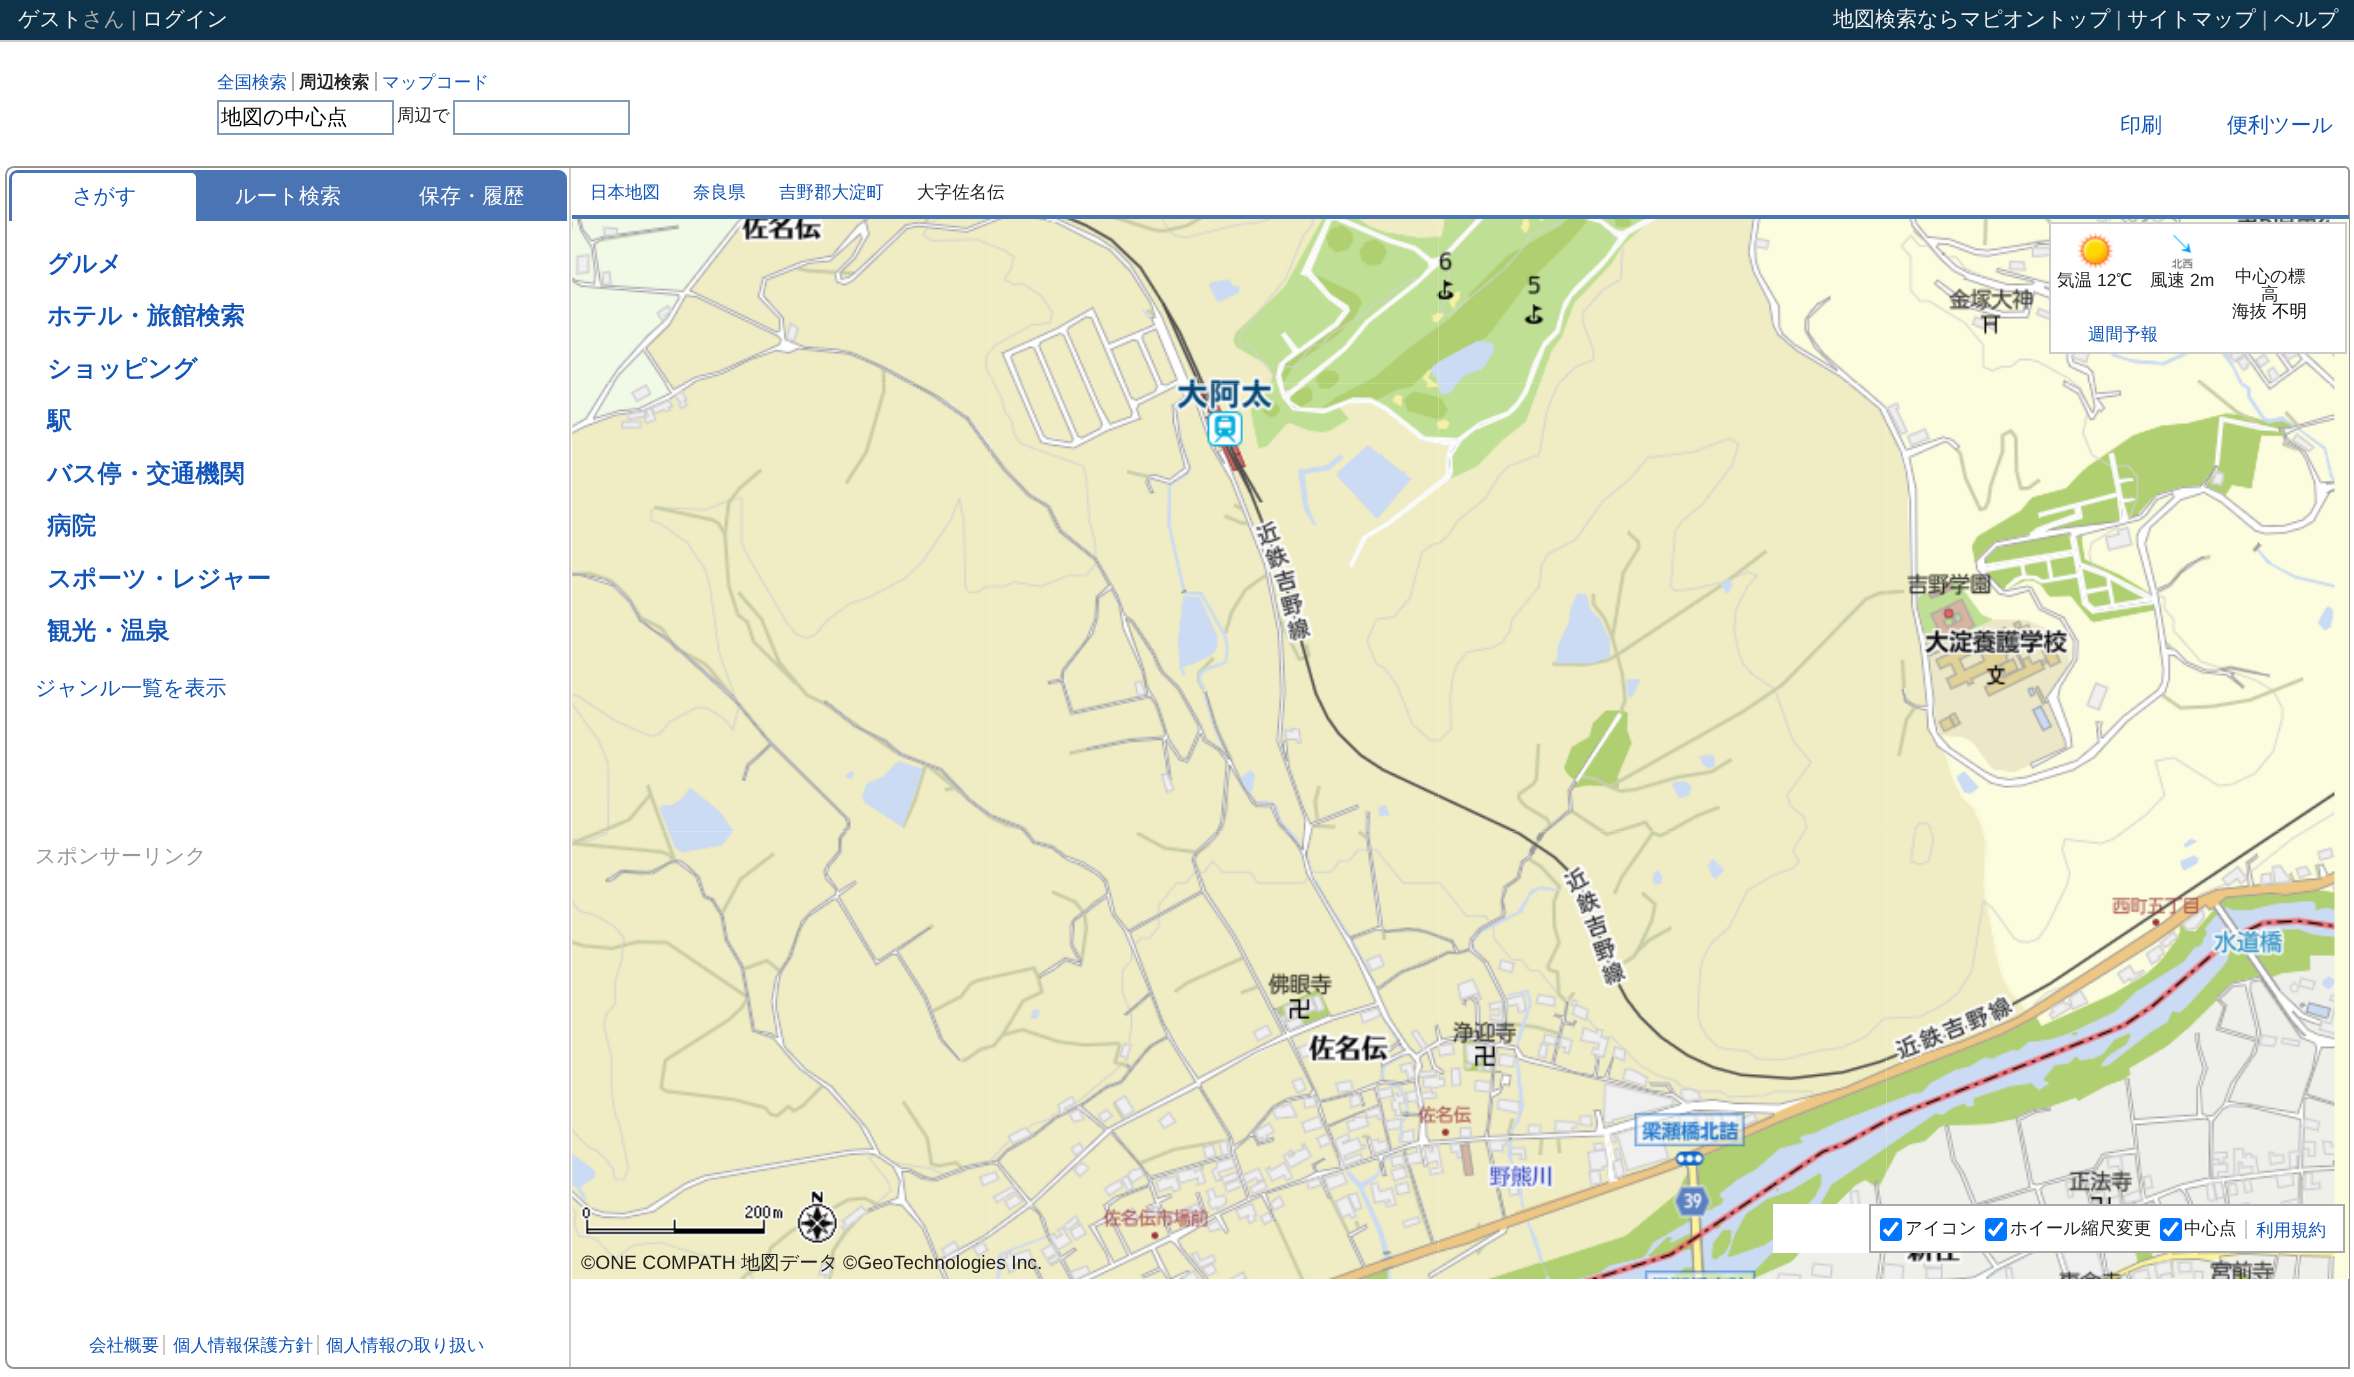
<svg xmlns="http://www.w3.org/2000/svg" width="2354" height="1377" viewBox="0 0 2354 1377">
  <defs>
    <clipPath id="clip1"><rect x="221" y="103" width="169" height="30"/></clipPath>
  </defs>
  <rect width="100%" height="100%" fill="rgb(255,255,255)"/>
  <rect x="0" y="0" width="2354" height="40" fill="rgb(13,51,74)"/>
  <rect x="0" y="40" width="2354" height="2" fill="rgb(204,204,204)"/>
  <text x="18" y="26" font-family="WenQuanYi Zen Hei" font-size="21" font-weight="500" fill="rgb(238,238,238)">ゲスト</text>
  <text x="82" y="26" font-family="WenQuanYi Zen Hei" font-size="21" font-weight="500" fill="rgb(170,170,170)">さん</text>
  <text x="131" y="26" font-family="Liberation Sans" font-size="21" fill="rgb(170,170,170)">|</text>
  <g font-family="WenQuanYi Zen Hei" font-size="21" font-weight="500" fill="rgb(238,238,238)">
    <text x="142" y="26">ログイン</text>
    <text x="1833" y="26">地図検索ならマピオントップ</text>
  </g>
  <text x="2116" y="26" font-family="Liberation Sans" font-size="21" fill="rgb(170,170,170)">|</text>
  <text x="2127" y="26" font-family="WenQuanYi Zen Hei" font-size="21" font-weight="500" fill="rgb(238,238,238)">サイトマップ</text>
  <text x="2262" y="26" font-family="Liberation Sans" font-size="21" fill="rgb(170,170,170)">|</text>
  <text x="2274" y="26" font-family="WenQuanYi Zen Hei" font-size="21" font-weight="500" fill="rgb(238,238,238)">ヘルプ</text>
  <rect x="292" y="72" width="2" height="19" fill="rgb(170,170,170)"/>
  <text x="217" y="88" font-family="WenQuanYi Zen Hei" font-size="17.5" font-weight="500" fill="rgb(17,85,187)">全国検索</text>
  <rect x="375" y="72" width="2" height="19" fill="rgb(170,170,170)"/>
  <text x="299" y="88" font-family="WenQuanYi Zen Hei" font-size="17.5" font-weight="bold" fill="rgb(34,34,34)">周辺検索</text>
  <text x="382" y="88" font-family="WenQuanYi Zen Hei" font-size="17.5" font-weight="500" fill="rgb(17,85,187)">マップコード</text>
  <rect x="218" y="101" width="175" height="33" fill="none" stroke="rgb(127,157,185)" stroke-width="2"/>
  <g clip-path="url(#clip1)">
    <text x="221" y="124" font-family="WenQuanYi Zen Hei" font-size="21" font-weight="500" fill="rgb(0,0,0)">地図の中心点</text>
  </g>
  <text x="397" y="121" font-family="WenQuanYi Zen Hei" font-size="17.5" font-weight="500" fill="rgb(34,34,34)">周辺で</text>
  <rect x="454" y="101" width="175" height="33" fill="none" stroke="rgb(127,157,185)" stroke-width="2"/>
  <g font-family="WenQuanYi Zen Hei" font-size="21" font-weight="500" fill="rgb(17,85,187)">
    <text x="2120" y="132">印刷</text>
    <text x="2227" y="132">便利ツール</text>
  </g>
  <path d="M14 167H2345C2347 167 2349 169 2349 171V1368H14C9.5 1368 6 1364.5 6 1360V175C6 170.5 9.5 167 14 167Z" fill="none" stroke="rgb(149,149,149)" stroke-width="2"/>
  <rect x="569" y="168" width="2" height="1199" fill="rgb(204,204,204)"/>
  <path d="M18 170H558C563 170 567 174 567 179V221H9V179C9 174 13 170 18 170Z" fill="rgb(74,116,180)"/>
  <path d="M17 173H191C194 173 196 175 196 178V221H12V178C12 175 14 173 17 173Z" fill="rgb(255,255,255)"/>
  <text x="72" y="203" font-family="WenQuanYi Zen Hei" font-size="21" font-weight="500" fill="rgb(17,85,187)">さがす</text>
  <g font-family="WenQuanYi Zen Hei" font-size="21" font-weight="500" fill="rgb(255,255,255)">
    <text x="235" y="203">ルート検索</text>
    <text x="419" y="203">保存・履歴</text>
  </g>
  <g font-family="WenQuanYi Zen Hei" font-size="24.5" font-weight="bold" fill="rgb(17,85,187)">
    <text x="47" y="272">グルメ</text>
    <text x="47" y="324">ホテル・旅館検索</text>
    <text x="47" y="377">ショッピング</text>
    <text x="47" y="429">駅</text>
    <text x="47" y="482">バス停・交通機関</text>
    <text x="47" y="534">病院</text>
    <text x="47" y="587">スポーツ・レジャー</text>
    <text x="47" y="639">観光・温泉</text>
  </g>
  <text x="35" y="695" font-family="WenQuanYi Zen Hei" font-size="21" font-weight="500" fill="rgb(17,85,187)">ジャンル一覧を表示</text>
  <text x="35" y="863" font-family="WenQuanYi Zen Hei" font-size="21" font-weight="500" fill="rgb(153,153,153)">スポンサーリンク</text>
  <text x="89" y="1351" font-family="WenQuanYi Zen Hei" font-size="17.5" font-weight="500" fill="rgb(17,85,187)">会社概要</text>
  <rect x="163" y="1335" width="2" height="20" fill="rgb(204,204,204)"/>
  <text x="173" y="1351" font-family="WenQuanYi Zen Hei" font-size="17.5" font-weight="500" fill="rgb(17,85,187)">個人情報保護方針</text>
  <rect x="317" y="1335" width="2" height="20" fill="rgb(204,204,204)"/>
  <text x="326" y="1351" font-family="WenQuanYi Zen Hei" font-size="17.5" font-weight="500" fill="rgb(17,85,187)">個人情報の取り扱い</text>
  <rect x="572" y="215" width="1777" height="4" fill="rgb(74,116,180)"/>
  <g font-family="WenQuanYi Zen Hei" font-size="17.5" font-weight="500" fill="rgb(17,85,187)">
    <text x="590" y="198">日本地図</text>
    <text x="693" y="198">奈良県</text>
    <text x="779" y="198">吉野郡大淀町</text>
  </g>
  <text x="917" y="198" font-family="WenQuanYi Zen Hei" font-size="17.5" font-weight="500" fill="rgb(34,34,34)">大字佐名伝</text>
  <rect x="572" y="219" width="1777" height="1060" fill="rgb(252,252,222)"/>
  <rect x="573" y="220" width="14" height="10" rx="3" fill="none" stroke="rgb(118,118,118)" stroke-width="2"/>
  <image x="1438" y="831" width="449" height="449" href="pic11.png"/>
  <image x="990" y="831" width="449" height="449" href="pic10.png"/>
  <image x="1886" y="831" width="449" height="449" href="pic12.png"/>
  <image x="1438" y="383" width="449" height="449" href="pic7.png"/>
  <image x="572" y="831" width="419" height="449" href="pic9.png"/>
  <image x="990" y="383" width="449" height="449" href="pic6.png"/>
  <image x="1886" y="383" width="449" height="449" href="pic8.png"/>
  <image x="1438" y="219" width="449" height="165" href="pic3.png"/>
  <image x="572" y="383" width="419" height="449" href="pic5.png"/>
  <image x="990" y="219" width="449" height="165" href="pic2.png"/>
  <image x="572" y="219" width="419" height="165" href="pic1.png"/>
  <image x="1887" y="219" width="448" height="165" href="pic4.png"/>
  <rect x="2050" y="223" width="296" height="130" fill="rgb(255,255,255)" stroke="rgb(204,204,204)" stroke-width="2"/>
  <image x="2077" y="232" width="38" height="38" href="pic13.png"/>
  <text x="2057" y="286" font-family="WenQuanYi Zen Hei" font-size="17.5" font-weight="500" fill="rgb(34,34,34)">気温</text>
  <text x="2097" y="286" font-family="Liberation Sans" font-size="17.5" fill="rgb(34,34,34)">12</text>
  <text x="2116" y="286" font-family="WenQuanYi Zen Hei" font-size="17.5" font-weight="500" fill="rgb(34,34,34)">℃</text>
  <image x="2171" y="234" width="22" height="36" href="pic14.png"/>
  <text x="2150" y="286" font-family="WenQuanYi Zen Hei" font-size="17.5" font-weight="500" fill="rgb(34,34,34)">風速</text>
  <text x="2190" y="286" font-family="Liberation Sans" font-size="17.5" fill="rgb(34,34,34)">2m</text>
  <g font-family="WenQuanYi Zen Hei" font-size="17.5" font-weight="500" fill="rgb(34,34,34)">
    <text x="2235" y="282">中心の標</text>
    <text x="2261" y="300">高</text>
    <text x="2232" y="317">海抜</text>
  </g>
  <text x="2272" y="317" font-family="WenQuanYi Zen Hei" font-size="17.5" font-weight="500" fill="rgb(0,0,0)">不明</text>
  <text x="2088" y="340" font-family="WenQuanYi Zen Hei" font-size="17.5" font-weight="500" fill="rgb(17,85,187)">週間予報</text>
  <image x="581" y="1190" width="258" height="55" href="pic15.png"/>
  <rect x="1773" y="1204" width="96" height="49" fill="rgb(255,255,255)"/>
  <rect x="1870" y="1205" width="474" height="47" fill="rgb(255,255,255)" stroke="rgb(170,170,170)" stroke-width="2"/>
  <rect x="1880" y="1218" width="22" height="23" rx="4" fill="rgb(0,117,255)"/>
  <path d="M1884 1229.5L1888.5 1234L1897.5 1222.5" fill="none" stroke="rgb(255,255,255)" stroke-width="3.6"/>
  <text x="1905" y="1234" font-family="WenQuanYi Zen Hei" font-size="17.5" font-weight="500" fill="rgb(34,34,34)">アイコン</text>
  <rect x="1985" y="1218" width="22" height="23" rx="4" fill="rgb(0,117,255)"/>
  <path d="M1989 1229.5L1993.5 1234L2002.5 1222.5" fill="none" stroke="rgb(255,255,255)" stroke-width="3.6"/>
  <text x="2010" y="1234" font-family="WenQuanYi Zen Hei" font-size="17.5" font-weight="500" fill="rgb(34,34,34)">ホイール縮尺変更</text>
  <rect x="2160" y="1218" width="22" height="23" rx="4" fill="rgb(0,117,255)"/>
  <path d="M2164 1229.5L2168.5 1234L2177.5 1222.5" fill="none" stroke="rgb(255,255,255)" stroke-width="3.6"/>
  <text x="2184" y="1234" font-family="WenQuanYi Zen Hei" font-size="17.5" font-weight="500" fill="rgb(34,34,34)">中心点</text>
  <text x="2256" y="1236" font-family="WenQuanYi Zen Hei" font-size="17.5" font-weight="500" fill="rgb(17,85,187)">利用規約</text>
  <rect x="2245" y="1220" width="2" height="19" fill="rgb(204,204,204)"/>
  <text x="581" y="1269" font-family="Liberation Sans" font-size="19.25" fill="rgb(34,34,34)">©ONE COMPATH</text>
  <text x="741" y="1269" font-family="WenQuanYi Zen Hei" font-size="19.25" font-weight="500" fill="rgb(34,34,34)">地図データ</text>
  <text x="843" y="1269" font-family="Liberation Sans" font-size="19.25" fill="rgb(34,34,34)">©GeoTechnologies Inc.</text>
</svg>
